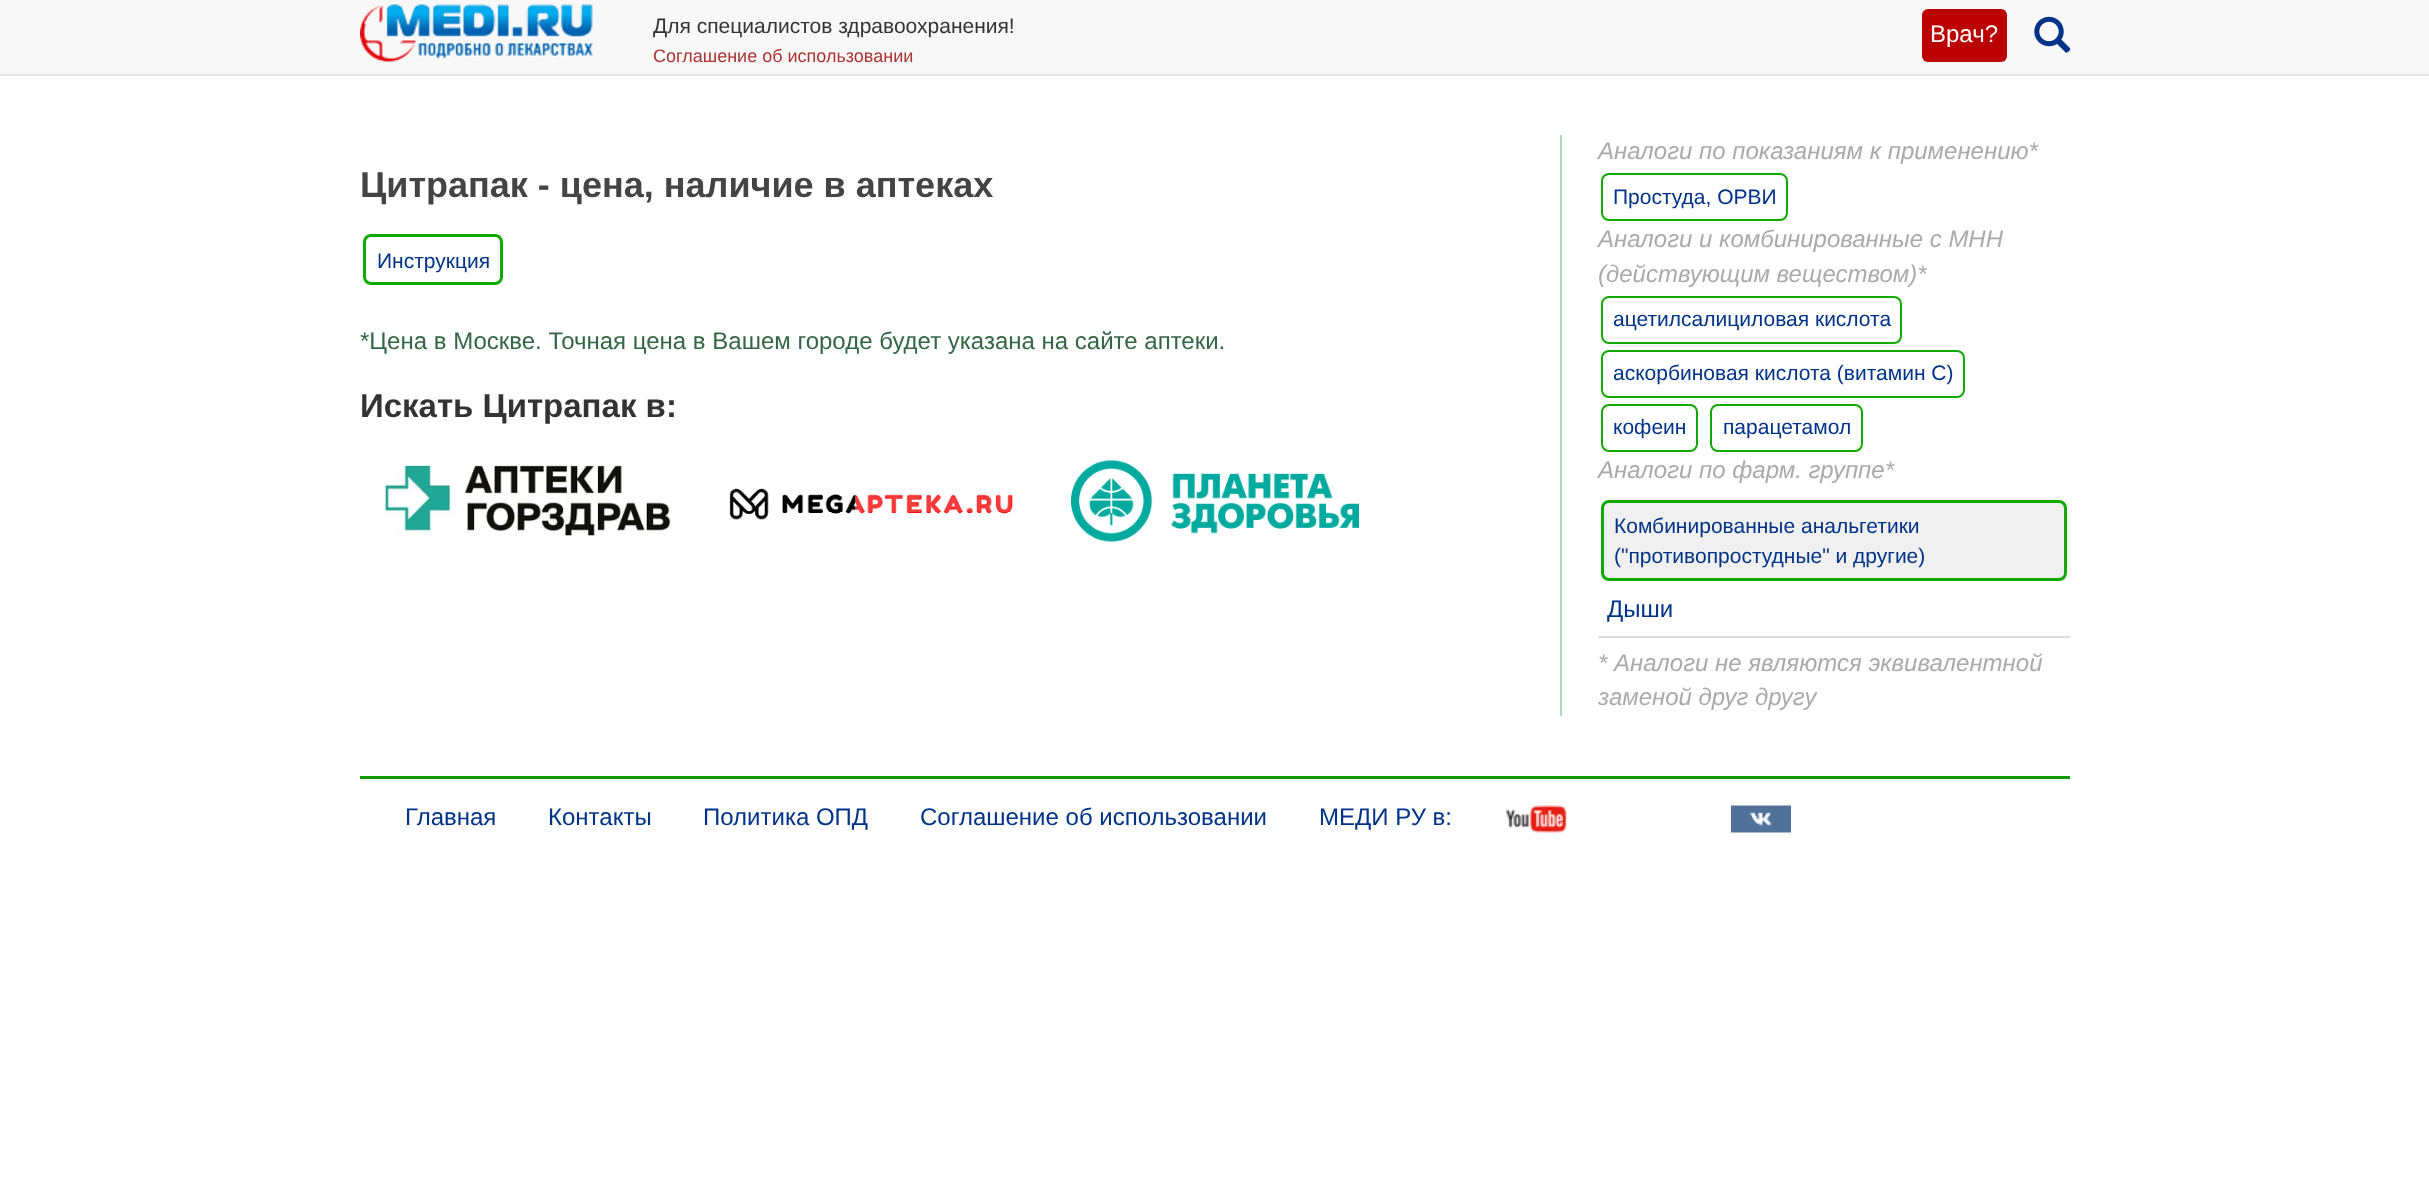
<svg xmlns="http://www.w3.org/2000/svg" width="2429" height="1199" viewBox="0 0 2429 1199">
  <rect width="100%" height="100%" fill="rgb(255,255,255)"/>
  <rect x="0" y="0" width="2429" height="74" fill="rgb(248,248,248)"/>
  <rect x="0" y="74" width="2429" height="2" fill="rgb(231,231,231)"/>
  <image x="360" y="4" width="233" height="58" href="pic1.png"/>
  <text x="653" y="33" font-family="Liberation Sans" font-size="21" fill="rgb(51,51,51)">Для специалистов здравоохранения!</text>
  <text x="653" y="62" font-family="Liberation Sans" font-size="18" fill="rgb(170,51,51)">Соглашение об использовании</text>
  <rect x="1922" y="9" width="85" height="53" rx="6" fill="rgb(187,0,0)"/>
  <text x="1930" y="42" font-family="Liberation Sans" font-size="24" fill="rgb(255,255,255)">Врач?</text>
  <image x="2034" y="16" width="37" height="37" href="pic2.png"/>
  <text x="360" y="197" font-family="Liberation Sans" font-size="36" font-weight="bold" fill="rgb(68,68,68)">Цитрапак - цена, наличие в аптеках</text>
  <rect x="364.5" y="235.5" width="137" height="48" rx="6.5" fill="none" stroke="rgb(17,170,0)" stroke-width="3"/>
  <text x="377" y="268" font-family="Liberation Sans" font-size="21" fill="rgb(0,51,136)">Инструкция</text>
  <text x="360" y="349" font-family="Liberation Sans" font-size="24" fill="rgb(51,102,68)">*Цена в Москве. Точная цена в Вашем городе будет указана на сайте аптеки.</text>
  <text x="360" y="417" font-family="Liberation Sans" font-size="33" font-weight="bold" fill="rgb(51,51,51)">Искать Цитрапак в:</text>
  <image x="384" y="465" width="287" height="72" href="pic3.png"/>
  <image x="729" y="488" width="284" height="32" href="pic4.png"/>
  <image x="1071" y="460" width="288" height="82" href="pic5.png"/>
  <rect x="1560" y="135" width="2" height="581" fill="rgb(170,221,187)"/>
  <text x="1598" y="159" font-family="Liberation Sans" font-size="24" font-style="italic" fill="rgb(170,170,170)">Аналоги по показаниям к применению*</text>
  <rect x="1602" y="174" width="185" height="46" rx="7" fill="none" stroke="rgb(17,170,0)" stroke-width="2"/>
  <text x="1613" y="204" font-family="Liberation Sans" font-size="21" fill="rgb(0,51,136)">Простуда, ОРВИ</text>
  <g font-family="Liberation Sans" font-size="24" font-style="italic" fill="rgb(170,170,170)">
    <text>
      <tspan x="1598" y="247">Аналоги и комбинированные с МНН</tspan>
      <tspan x="1598" y="282">(действующим веществом)*</tspan>
    </text>
  </g>
  <rect x="1602" y="297" width="299" height="46" rx="7" fill="none" stroke="rgb(17,170,0)" stroke-width="2"/>
  <text x="1613" y="326" font-family="Liberation Sans" font-size="21" fill="rgb(0,51,136)">ацетилсалициловая кислота</text>
  <rect x="1602" y="351" width="362" height="46" rx="7" fill="none" stroke="rgb(17,170,0)" stroke-width="2"/>
  <text x="1613" y="380" font-family="Liberation Sans" font-size="21" fill="rgb(0,51,136)">аскорбиновая кислота (витамин C)</text>
  <rect x="1602" y="405" width="95" height="46" rx="7" fill="none" stroke="rgb(17,170,0)" stroke-width="2"/>
  <text x="1613" y="434" font-family="Liberation Sans" font-size="21" fill="rgb(0,51,136)">кофеин</text>
  <rect x="1711" y="405" width="151" height="46" rx="7" fill="none" stroke="rgb(17,170,0)" stroke-width="2"/>
  <text x="1723" y="434" font-family="Liberation Sans" font-size="21" fill="rgb(0,51,136)">парацетамол</text>
  <text x="1598" y="478" font-family="Liberation Sans" font-size="24" font-style="italic" fill="rgb(170,170,170)">Аналоги по фарм. группе*</text>
  <rect x="1602.5" y="501.5" width="463" height="78" rx="6.5" fill="rgb(240,240,240)" stroke="rgb(17,170,0)" stroke-width="3"/>
  <g font-family="Liberation Sans" font-size="21" fill="rgb(0,51,136)">
    <text>
      <tspan x="1614" y="533">Комбинированные анальгетики</tspan>
      <tspan x="1614" y="563">("противопростудные" и другие)</tspan>
    </text>
  </g>
  <rect x="1598" y="636" width="472" height="2" fill="rgb(221,221,221)"/>
  <text x="1607" y="617" font-family="Liberation Sans" font-size="24" fill="rgb(0,51,136)">Дыши</text>
  <g font-family="Liberation Sans" font-size="24" font-style="italic" fill="rgb(170,170,170)">
    <text>
      <tspan x="1598" y="671">* Аналоги не являются эквивалентной</tspan>
      <tspan x="1598" y="705">заменой друг другу</tspan>
    </text>
  </g>
  <rect x="360" y="776" width="1710" height="3" fill="rgb(17,153,0)"/>
  <g font-family="Liberation Sans" font-size="24" fill="rgb(0,51,136)">
    <text x="405" y="825">Главная</text>
    <text x="548" y="825">Контакты</text>
    <text x="703" y="825">Политика ОПД</text>
    <text x="920" y="825">Соглашение об использовании</text>
    <text x="1319" y="825">МЕДИ РУ в:</text>
  </g>
  <image x="1505" y="805" width="62" height="28" href="pic6.png"/>
  <image x="1731" y="805" width="60" height="28" href="pic7.png"/>
</svg>
